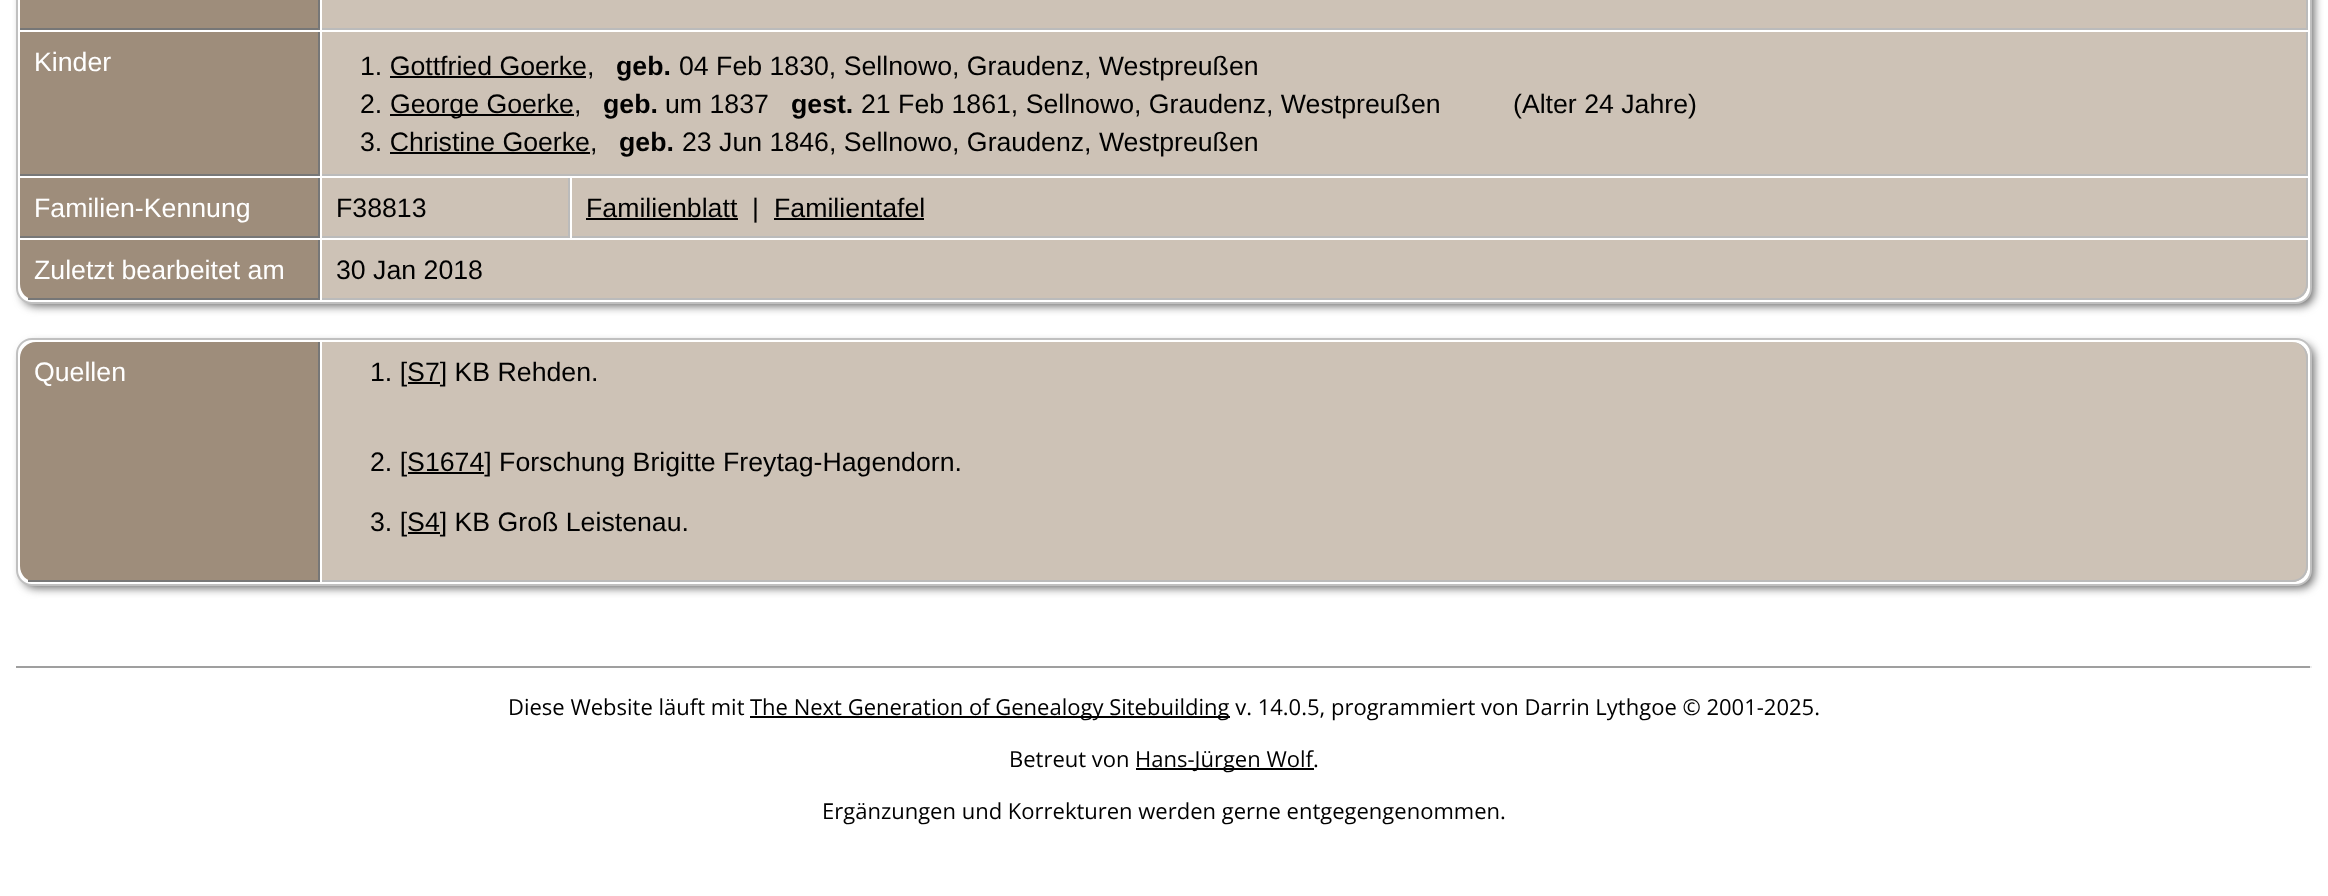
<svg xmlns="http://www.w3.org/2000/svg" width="2328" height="896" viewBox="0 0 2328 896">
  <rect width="100%" height="100%" fill="rgb(255,255,255)"/>
  <rect x="22" y="-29" width="2292" height="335" rx="14" fill="rgb(102,102,102)" filter="blur(5px)"/>
  <rect x="17" y="-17" width="2294" height="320" rx="15" fill="rgb(255,255,255)" stroke="rgb(192,192,192)" stroke-width="2"/>
  <rect x="20" y="0" width="298" height="28" fill="rgb(158,141,123)"/>
  <rect x="318" y="0" width="2" height="30" fill="rgb(119,119,119)"/>
  <rect x="20" y="28" width="300" height="2" fill="rgb(119,119,119)"/>
  <rect x="322" y="0" width="1984" height="28" fill="rgb(205,194,182)"/>
  <rect x="2306" y="0" width="2" height="30" fill="rgb(187,187,187)"/>
  <rect x="322" y="28" width="1986" height="2" fill="rgb(187,187,187)"/>
  <rect x="20" y="32" width="298" height="142" fill="rgb(158,141,123)"/>
  <rect x="318" y="32" width="2" height="144" fill="rgb(119,119,119)"/>
  <rect x="20" y="174" width="300" height="2" fill="rgb(119,119,119)"/>
  <text x="34" y="71" font-family="Liberation Sans" font-size="26.7" fill="rgb(255,255,255)">Kinder</text>
  <rect x="322" y="32" width="1984" height="142" fill="rgb(205,194,182)"/>
  <rect x="2306" y="32" width="2" height="144" fill="rgb(187,187,187)"/>
  <rect x="322" y="174" width="1986" height="2" fill="rgb(187,187,187)"/>
  <text x="360" y="75" font-family="Liberation Sans" font-size="26.7" fill="rgb(0,0,0)">1. Gottfried Goerke,</text>
  <rect x="390" y="76" width="196" height="2" fill="rgb(0,0,0)"/>
  <text x="616" y="75" font-family="Liberation Sans" font-size="26.7" font-weight="bold" fill="rgb(0,0,0)">geb.</text>
  <g font-family="Liberation Sans" font-size="26.7" fill="rgb(0,0,0)">
    <text x="679" y="75">04 Feb 1830, Sellnowo, Graudenz, Westpreußen</text>
    <text x="360" y="113">2.</text>
  </g>
  <rect x="390" y="114" width="184" height="2" fill="rgb(0,0,0)"/>
  <text x="390" y="113" font-family="Liberation Sans" font-size="26.7" fill="rgb(0,0,0)">George Goerke,</text>
  <text x="603" y="113" font-family="Liberation Sans" font-size="26.7" font-weight="bold" fill="rgb(0,0,0)">geb.</text>
  <text x="665" y="113" font-family="Liberation Sans" font-size="26.7" fill="rgb(0,0,0)">um 1837</text>
  <text x="791" y="113" font-family="Liberation Sans" font-size="26.7" font-weight="bold" fill="rgb(0,0,0)">gest.</text>
  <g font-family="Liberation Sans" font-size="26.7" fill="rgb(0,0,0)">
    <text x="861" y="113">21 Feb 1861, Sellnowo, Graudenz, Westpreußen</text>
    <text x="1513" y="113">(Alter 24 Jahre)</text>
    <text x="360" y="151">3. Christine Goerke,</text>
  </g>
  <rect x="390" y="152" width="200" height="2" fill="rgb(0,0,0)"/>
  <text x="619" y="151" font-family="Liberation Sans" font-size="26.7" font-weight="bold" fill="rgb(0,0,0)">geb.</text>
  <text x="682" y="151" font-family="Liberation Sans" font-size="26.7" fill="rgb(0,0,0)">23 Jun 1846, Sellnowo, Graudenz, Westpreußen</text>
  <rect x="20" y="178" width="298" height="58" fill="rgb(158,141,123)"/>
  <rect x="318" y="178" width="2" height="60" fill="rgb(119,119,119)"/>
  <rect x="20" y="236" width="300" height="2" fill="rgb(119,119,119)"/>
  <text x="34" y="217" font-family="Liberation Sans" font-size="26.7" fill="rgb(255,255,255)">Familien-Kennung</text>
  <rect x="322" y="178" width="246" height="58" fill="rgb(205,194,182)"/>
  <rect x="568" y="178" width="2" height="60" fill="rgb(187,187,187)"/>
  <rect x="322" y="236" width="248" height="2" fill="rgb(187,187,187)"/>
  <text x="336" y="217" font-family="Liberation Sans" font-size="26.7" fill="rgb(0,0,0)">F38813</text>
  <rect x="572" y="178" width="1734" height="58" fill="rgb(205,194,182)"/>
  <rect x="2306" y="178" width="2" height="60" fill="rgb(187,187,187)"/>
  <rect x="572" y="236" width="1736" height="2" fill="rgb(187,187,187)"/>
  <text x="586" y="217" font-family="Liberation Sans" font-size="26.7" fill="rgb(0,0,0)">Familienblatt</text>
  <rect x="586" y="218" width="152" height="2" fill="rgb(0,0,0)"/>
  <g font-family="Liberation Sans" font-size="26.7" fill="rgb(0,0,0)">
    <text x="752" y="217">|</text>
    <text x="774" y="217">Familientafel</text>
  </g>
  <rect x="774" y="218" width="150" height="2" fill="rgb(0,0,0)"/>
  <path d="M20 240H320V300H36C27 300 20 293 20 284Z" fill="rgb(158,141,123)"/>
  <rect x="318" y="240" width="2" height="60" fill="rgb(119,119,119)"/>
  <rect x="28" y="298" width="292" height="2" fill="rgb(119,119,119)"/>
  <text x="34" y="279" font-family="Liberation Sans" font-size="26.7" fill="rgb(255,255,255)">Zuletzt bearbeitet am</text>
  <path d="M322 240H2308V284C2308 293 2301 300 2292 300H322Z" fill="rgb(205,194,182)"/>
  <path d="M322 240H2308V284C2308 293 2301 300 2292 300H322ZM322 240H2306V284C2306 292 2300 298 2292 298H322Z" fill="rgb(187,187,187)" fill-rule="evenodd"/>
  <text x="336" y="279" font-family="Liberation Sans" font-size="26.7" fill="rgb(0,0,0)">30 Jan 2018</text>
  <rect x="22" y="344" width="2292" height="244" rx="14" fill="rgb(102,102,102)" filter="blur(5px)"/>
  <rect x="17" y="339" width="2294" height="246" rx="15" fill="rgb(255,255,255)" stroke="rgb(192,192,192)" stroke-width="2"/>
  <path d="M36 342H320V582H36C27 582 20 575 20 566V358C20 349 27 342 36 342Z" fill="rgb(158,141,123)"/>
  <rect x="318" y="342" width="2" height="240" fill="rgb(119,119,119)"/>
  <rect x="28" y="580" width="292" height="2" fill="rgb(119,119,119)"/>
  <text x="34" y="381" font-family="Liberation Sans" font-size="26.7" fill="rgb(255,255,255)">Quellen</text>
  <path d="M322 342H2292C2301 342 2308 349 2308 358V566C2308 575 2301 582 2292 582H322Z" fill="rgb(205,194,182)"/>
  <path d="M322 342H2292C2301 342 2308 349 2308 358V566C2308 575 2301 582 2292 582H322ZM322 342H2292C2300 342 2306 349 2306 358V566C2306 574 2300 580 2292 580H322Z" fill="rgb(187,187,187)" fill-rule="evenodd"/>
  <text x="370" y="381" font-family="Liberation Sans" font-size="26.7" fill="rgb(0,0,0)">1. [S7] KB Rehden.</text>
  <rect x="408" y="382" width="32" height="2" fill="rgb(0,0,0)"/>
  <text x="370" y="471" font-family="Liberation Sans" font-size="26.7" fill="rgb(0,0,0)">2. [S1674] Forschung Brigitte Freytag-Hagendorn.</text>
  <rect x="408" y="472" width="76" height="2" fill="rgb(0,0,0)"/>
  <text x="370" y="531" font-family="Liberation Sans" font-size="26.7" fill="rgb(0,0,0)">3. [S4] KB Groß Leistenau.</text>
  <rect x="408" y="532" width="32" height="2" fill="rgb(0,0,0)"/>
  <rect x="16" y="666" width="2296" height="2" fill="rgb(159,159,159)"/>
  <rect x="2310" y="666" width="2" height="2" fill="rgb(238,238,238)"/>
  <text x="508" y="715" font-family="Open Sans" font-size="22" fill="rgb(0,0,0)">Diese Website läuft mit</text>
  <rect x="750" y="716" width="480" height="2" fill="rgb(0,0,0)"/>
  <g font-family="Open Sans" font-size="22" fill="rgb(0,0,0)">
    <text x="750" y="715">The Next Generation of Genealogy Sitebuilding v. 14.0.5, programmiert von Darrin Lythgoe © 2001-2025.</text>
    <text x="1009" y="767">Betreut von</text>
  </g>
  <rect x="1136" y="768" width="178" height="2" fill="rgb(0,0,0)"/>
  <g font-family="Open Sans" font-size="22" fill="rgb(0,0,0)">
    <text x="1135" y="767">Hans-Jürgen Wolf.</text>
    <text x="822" y="819">Ergänzungen und Korrekturen werden gerne entgegengenommen.</text>
  </g>
</svg>
